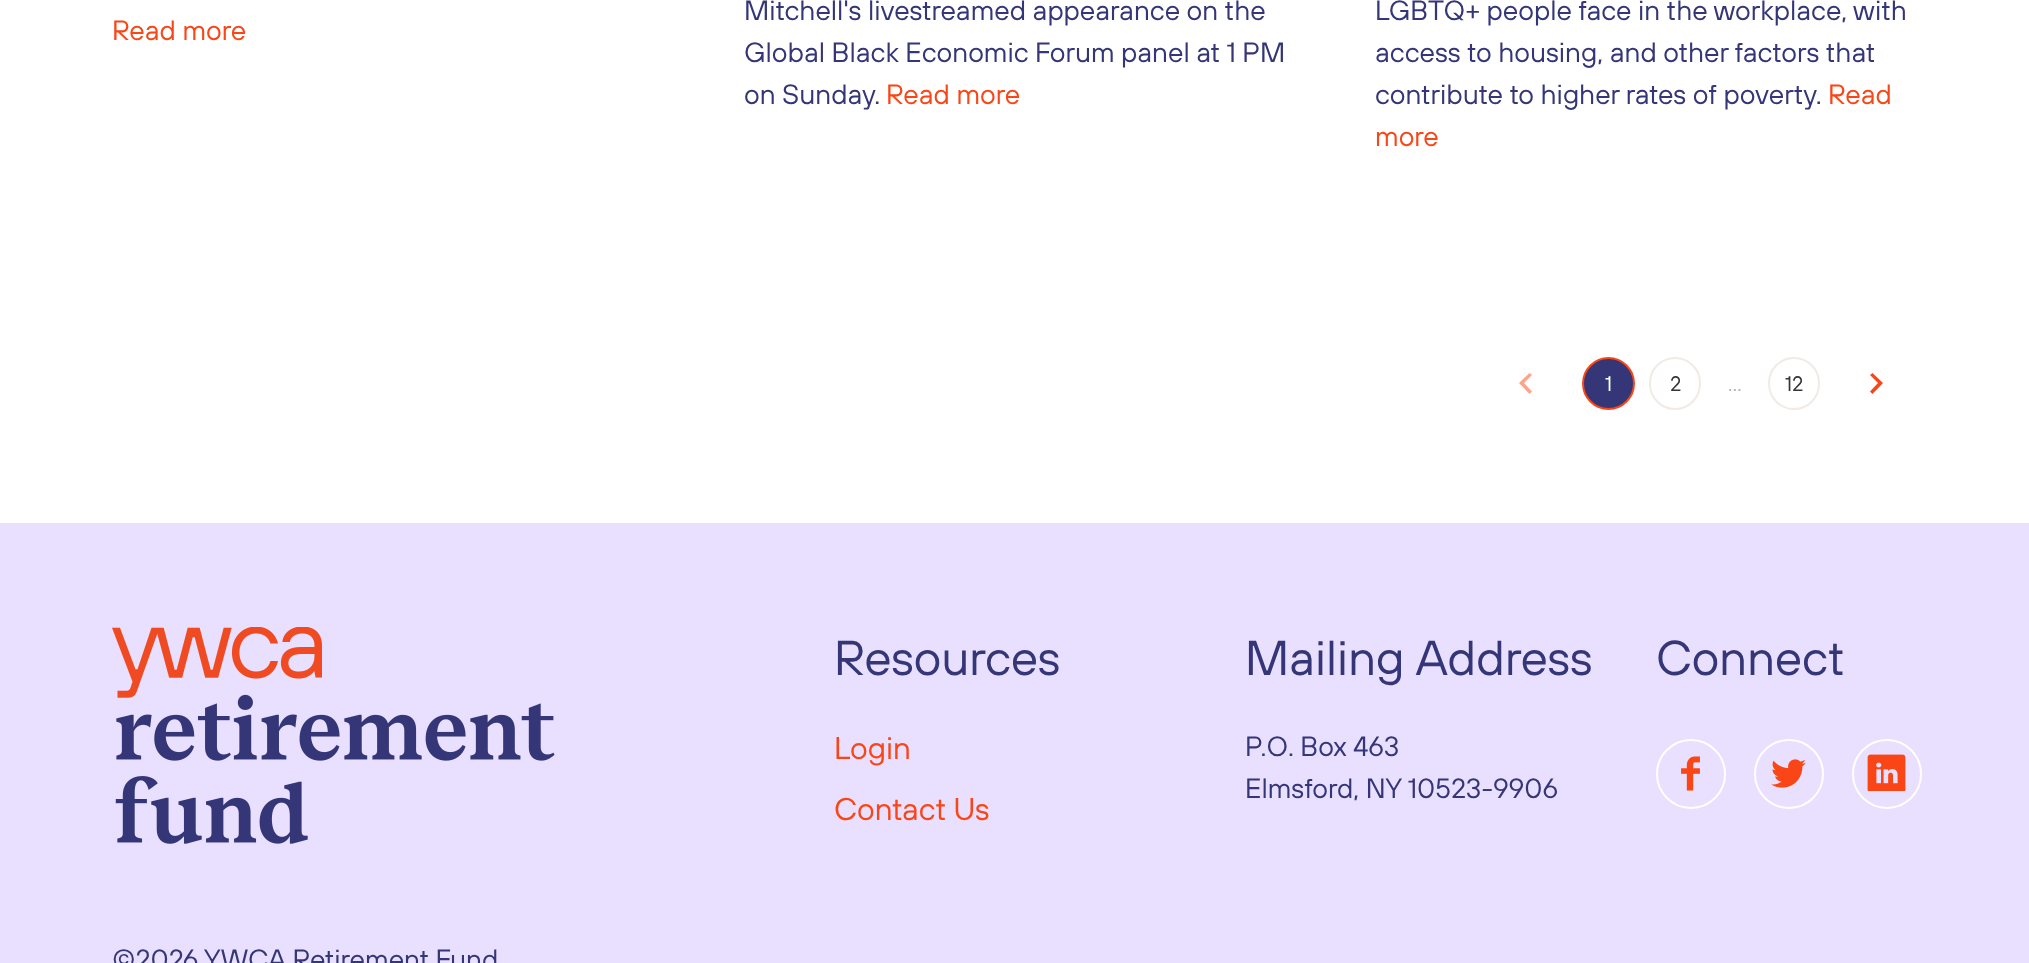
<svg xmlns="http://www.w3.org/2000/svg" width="2029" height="963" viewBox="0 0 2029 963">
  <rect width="100%" height="100%" fill="rgb(255,255,255)"/>
  <text x="112" y="40" font-family="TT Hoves" font-size="28" fill="rgb(250,70,22)">Read more</text>
  <g font-family="TT Hoves" font-size="28" fill="rgb(52,54,119)">
    <text>
      <tspan x="744" y="20">Mitchell's livestreamed appearance on the</tspan>
      <tspan x="744" y="62">Global Black Economic Forum panel at 1 PM</tspan>
      <tspan x="744" y="104">on Sunday.</tspan>
    </text>
  </g>
  <text x="886" y="104" font-family="TT Hoves" font-size="28" fill="rgb(250,70,22)">Read more</text>
  <g font-family="TT Hoves" font-size="28" fill="rgb(52,54,119)">
    <text>
      <tspan x="1375" y="20">LGBTQ+ people face in the workplace, with</tspan>
      <tspan x="1375" y="62">access to housing, and other factors that</tspan>
      <tspan x="1375" y="104">contribute to higher rates of poverty.</tspan>
    </text>
  </g>
  <g font-family="TT Hoves" font-size="28" fill="rgb(250,70,22)">
    <text x="1828" y="104">Read</text>
    <text x="1375" y="146">more</text>
  </g>
  <path d="M1532 391.5L1524 383L1532 375L1529.5 373L1519 383L1529.5 394Z" fill="rgb(253,163,139)"/>
  <circle cx="1608.5" cy="383.5" r="25.5" fill="rgb(52,54,119)" stroke="rgb(250,70,22)" stroke-width="2"/>
  <text x="1605" y="391" font-family="TT Hoves" font-size="21" fill="rgb(255,255,255)">1</text>
  <rect x="1650" y="358" width="50" height="51" rx="25" fill="none" stroke="rgb(240,235,230)" stroke-width="2"/>
  <text x="1670" y="391" font-family="TT Hoves" font-size="21" fill="rgb(54,54,54)">2</text>
  <text x="1728" y="391" font-family="TT Hoves" font-size="21" fill="rgb(181,181,181)">…</text>
  <rect x="1769" y="358" width="50" height="51" rx="25" fill="none" stroke="rgb(240,235,230)" stroke-width="2"/>
  <text x="1785" y="391" font-family="TT Hoves" font-size="21" fill="rgb(54,54,54)">12</text>
  <path d="M1870 391.5L1878 383L1870 375L1872.5 373L1883 383L1872.5 394Z" fill="rgb(250,70,22)"/>
  <rect x="0" y="523" width="2029" height="440" fill="rgb(233,223,254)"/>
  <image x="112" y="627" width="443" height="217" href="pic1.png"/>
  <text x="834" y="675" font-family="TT Hoves" font-size="49" fill="rgb(52,54,119)">Resources</text>
  <g font-family="TT Hoves" font-size="31.5" fill="rgb(250,70,22)">
    <text>
      <tspan x="834" y="759">Login</tspan>
      <tspan x="834" y="820">Contact Us</tspan>
    </text>
  </g>
  <text x="1245" y="675" font-family="TT Hoves" font-size="49" fill="rgb(52,54,119)">Mailing Address</text>
  <g font-family="TT Hoves" font-size="28" fill="rgb(52,54,119)">
    <text>
      <tspan x="1245" y="756">P.O. Box 463</tspan>
      <tspan x="1245" y="798">Elmsford, NY 10523-9906</tspan>
    </text>
  </g>
  <text x="1656" y="675" font-family="TT Hoves" font-size="49" fill="rgb(52,54,119)">Connect</text>
  <circle cx="1691" cy="774" r="34" fill="none" stroke="rgb(255,255,255)" stroke-width="2"/>
  <image x="1681" y="756" width="19" height="35" href="pic2.png"/>
  <circle cx="1789" cy="774" r="34" fill="none" stroke="rgb(255,255,255)" stroke-width="2"/>
  <image x="1771" y="759" width="35" height="29" href="pic3.png"/>
  <circle cx="1887" cy="774" r="34" fill="none" stroke="rgb(255,255,255)" stroke-width="2"/>
  <image x="1867" y="754" width="39" height="37" href="pic4.png"/>
  <text x="112" y="969" font-family="TT Hoves" font-size="28" fill="rgb(52,54,119)">©2026 YWCA Retirement Fund</text>
</svg>
